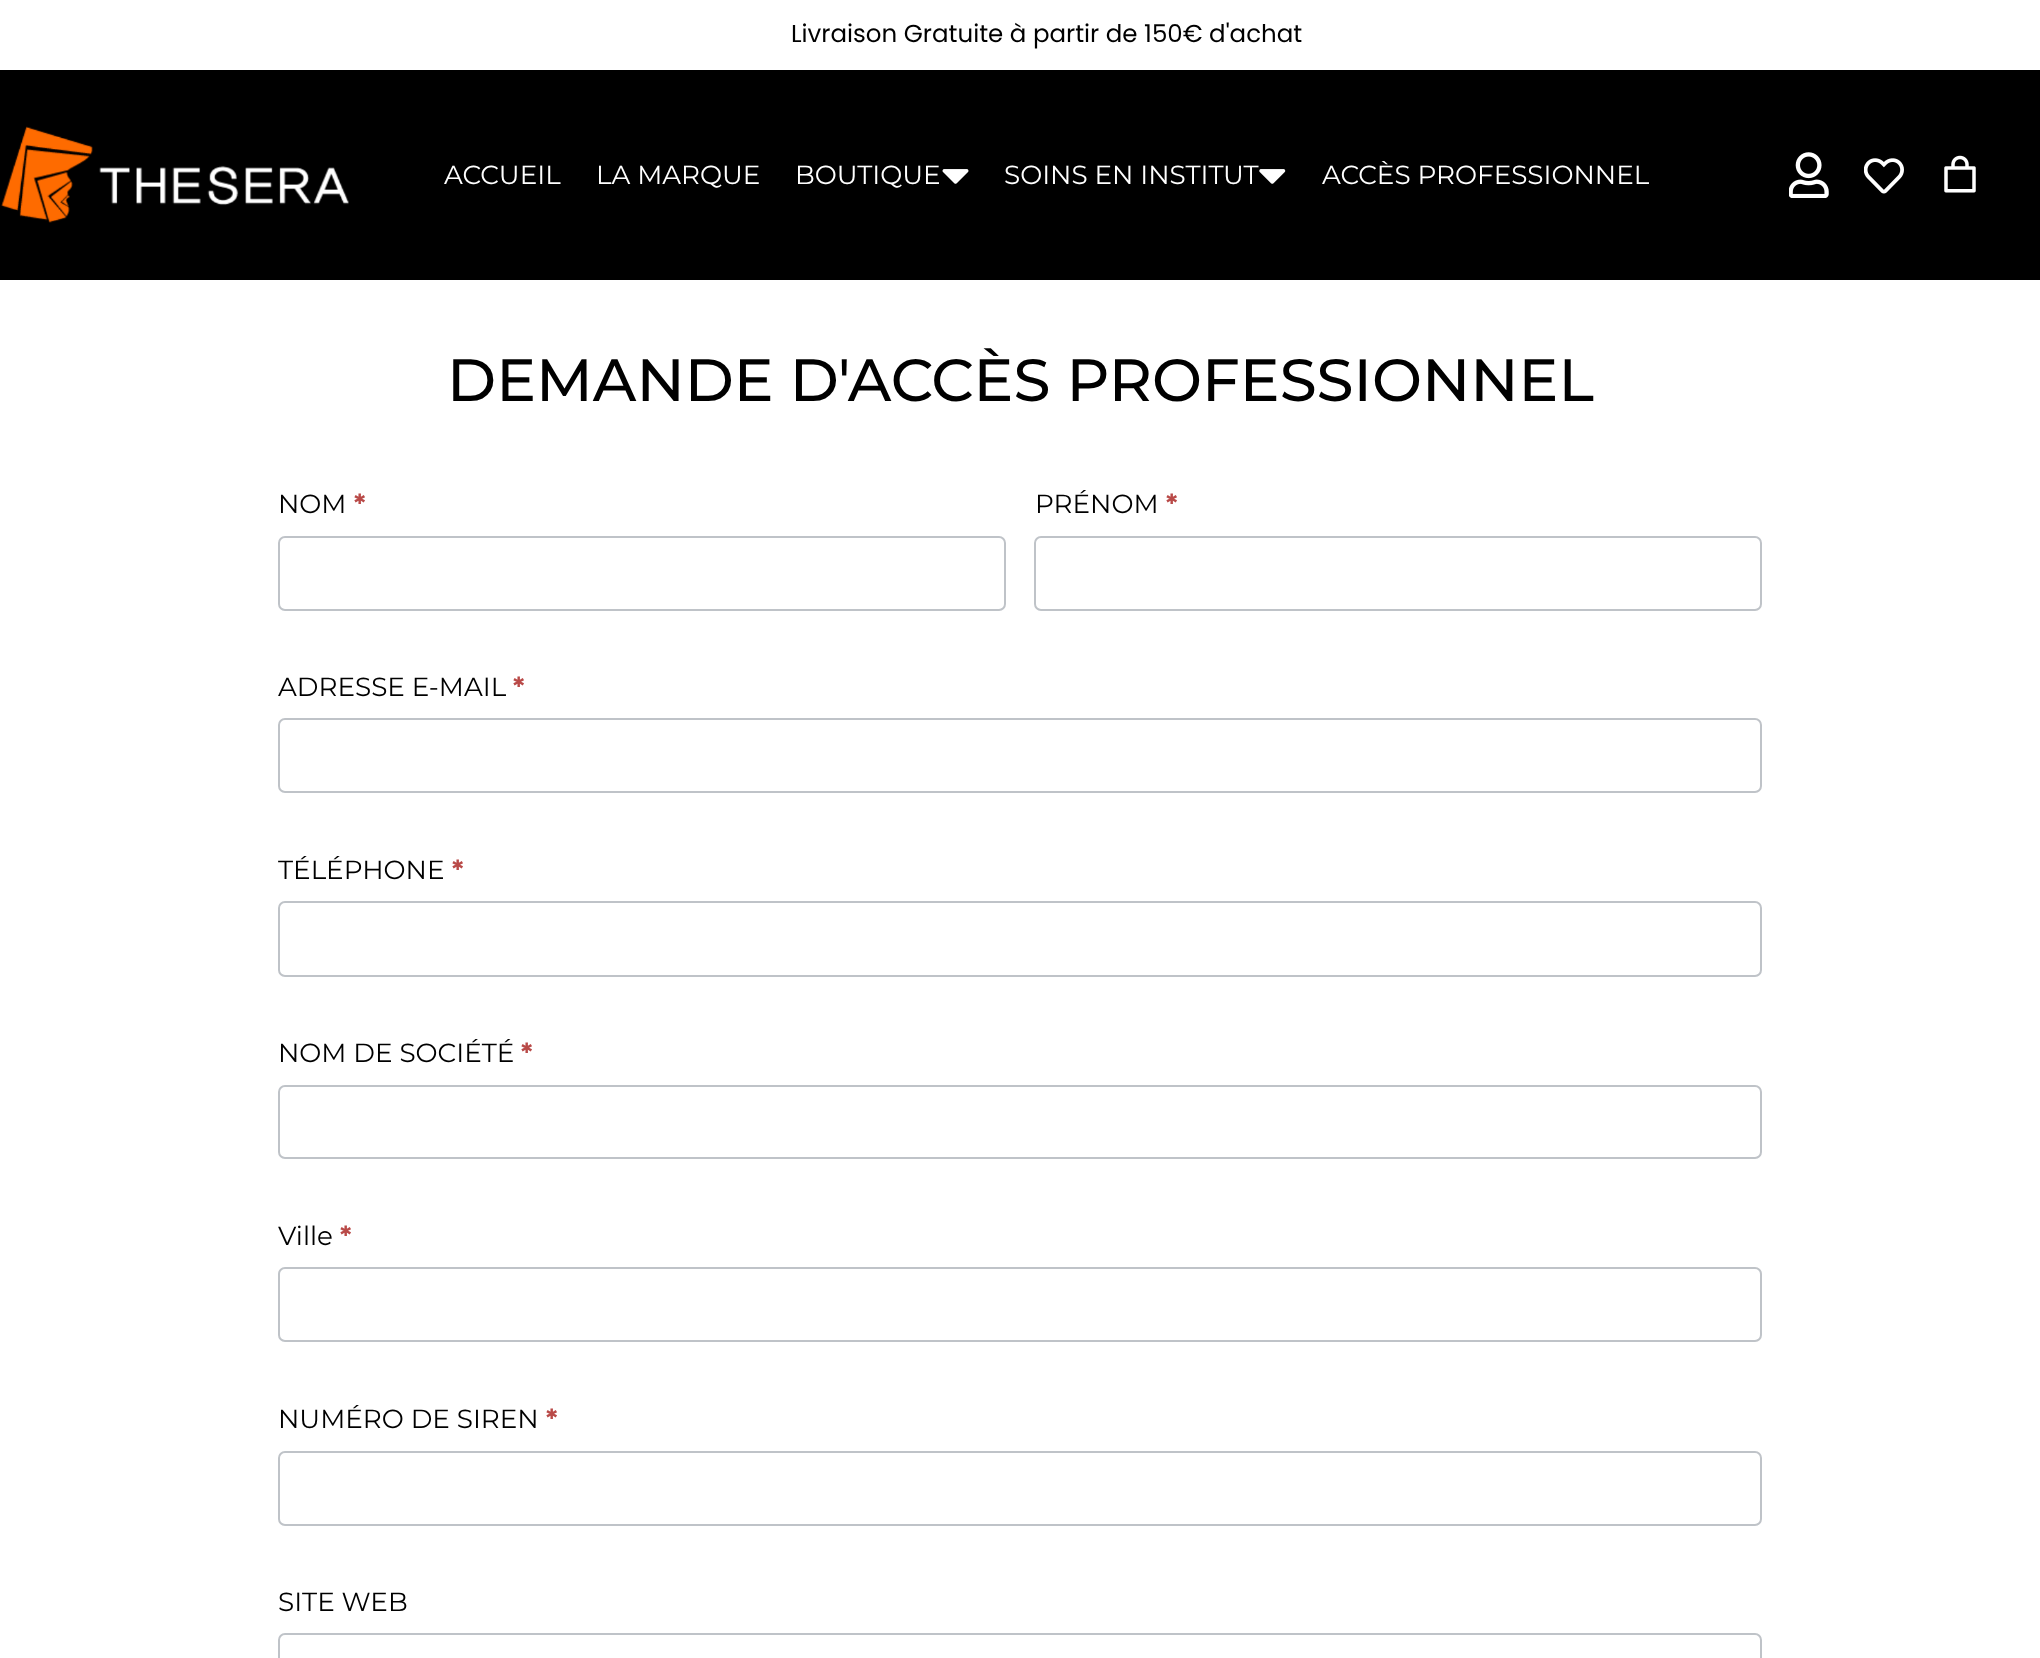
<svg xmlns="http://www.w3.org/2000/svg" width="2040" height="1658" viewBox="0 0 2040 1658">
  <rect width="100%" height="100%" fill="rgb(255,255,255)"/>
  <text x="791" y="42" font-family="Poppins" font-size="24.5" fill="rgb(0,0,0)">Livraison Gratuite à partir de 150€ d'achat</text>
  <rect x="0" y="70" width="2040" height="210" fill="rgb(0,0,0)"/>
  <image x="1" y="126" width="348" height="97" href="pic1.png"/>
  <g font-family="Montserrat" font-size="26.25" fill="rgb(255,255,255)">
    <text x="444" y="184">ACCUEIL</text>
    <text x="596" y="184">LA MARQUE</text>
    <text x="795" y="184">BOUTIQUE</text>
  </g>
  <image x="942" y="169" width="27" height="15" href="pic2.png"/>
  <text x="1004" y="184" font-family="Montserrat" font-size="26.25" fill="rgb(255,255,255)">SOINS EN INSTITUT</text>
  <image x="1259" y="169" width="27" height="15" href="pic3.png"/>
  <text x="1322" y="184" font-family="Montserrat" font-size="26.25" fill="rgb(255,255,255)">ACCÈS PROFESSIONNEL</text>
  <image x="1789" y="152" width="40" height="46" href="pic4.png"/>
  <image x="1864" y="158" width="40" height="36" href="pic5.png"/>
  <image x="1944" y="155" width="32" height="38" href="pic6.png"/>
  <text x="447" y="401" font-family="Montserrat" font-size="59.5" font-weight="500" fill="rgb(0,0,0)">DEMANDE D'ACCÈS PROFESSIONNEL</text>
  <text x="278" y="513" font-family="Montserrat" font-size="26.25" fill="rgb(0,0,0)">NOM</text>
  <text x="354" y="513" font-family="Montserrat" font-size="26.25" font-weight="bold" fill="rgb(185,74,72)">*</text>
  <rect x="279" y="537" width="726" height="73" rx="6" fill="none" stroke="rgb(191,195,200)" stroke-width="2"/>
  <text x="1035" y="513" font-family="Montserrat" font-size="26.25" fill="rgb(0,0,0)">PRÉNOM</text>
  <text x="1166" y="513" font-family="Montserrat" font-size="26.25" font-weight="bold" fill="rgb(185,74,72)">*</text>
  <rect x="1035" y="537" width="726" height="73" rx="6" fill="none" stroke="rgb(191,195,200)" stroke-width="2"/>
  <text x="278" y="696" font-family="Montserrat" font-size="26.25" fill="rgb(0,0,0)">ADRESSE E-MAIL</text>
  <text x="513" y="696" font-family="Montserrat" font-size="26.25" font-weight="bold" fill="rgb(185,74,72)">*</text>
  <rect x="279" y="719" width="1482" height="73" rx="6" fill="none" stroke="rgb(191,195,200)" stroke-width="2"/>
  <text x="278" y="879" font-family="Montserrat" font-size="26.25" fill="rgb(0,0,0)">TÉLÉPHONE</text>
  <text x="452" y="879" font-family="Montserrat" font-size="26.25" font-weight="bold" fill="rgb(185,74,72)">*</text>
  <rect x="279" y="902" width="1482" height="74" rx="6" fill="none" stroke="rgb(191,195,200)" stroke-width="2"/>
  <text x="278" y="1062" font-family="Montserrat" font-size="26.25" fill="rgb(0,0,0)">NOM DE SOCIÉTÉ</text>
  <text x="521" y="1062" font-family="Montserrat" font-size="26.25" font-weight="bold" fill="rgb(185,74,72)">*</text>
  <rect x="279" y="1086" width="1482" height="72" rx="6" fill="none" stroke="rgb(191,195,200)" stroke-width="2"/>
  <text x="278" y="1245" font-family="Montserrat" font-size="26.25" fill="rgb(0,0,0)">Ville</text>
  <text x="340" y="1245" font-family="Montserrat" font-size="26.25" font-weight="bold" fill="rgb(185,74,72)">*</text>
  <rect x="279" y="1268" width="1482" height="73" rx="6" fill="none" stroke="rgb(191,195,200)" stroke-width="2"/>
  <text x="278" y="1428" font-family="Montserrat" font-size="26.25" fill="rgb(0,0,0)">NUMÉRO DE SIREN</text>
  <text x="546" y="1428" font-family="Montserrat" font-size="26.25" font-weight="bold" fill="rgb(185,74,72)">*</text>
  <rect x="279" y="1452" width="1482" height="73" rx="6" fill="none" stroke="rgb(191,195,200)" stroke-width="2"/>
  <text x="278" y="1611" font-family="Montserrat" font-size="26.25" fill="rgb(0,0,0)">SITE WEB</text>
  <rect x="279" y="1634" width="1482" height="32" rx="6" fill="none" stroke="rgb(191,195,200)" stroke-width="2"/>
</svg>
